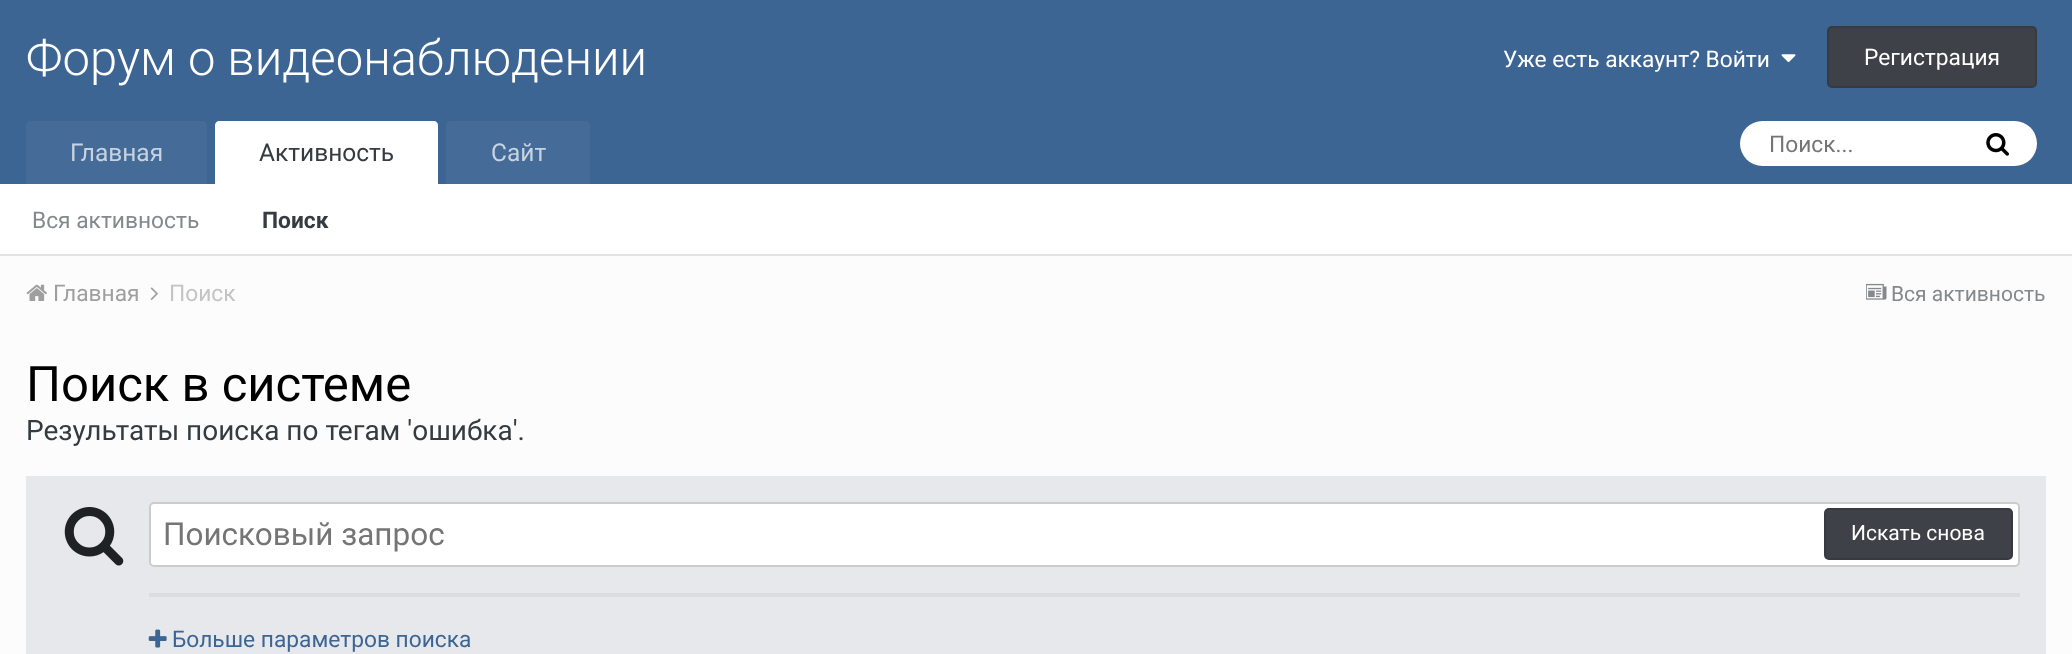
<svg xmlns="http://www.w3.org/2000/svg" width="2072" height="654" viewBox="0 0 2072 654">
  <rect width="100%" height="100%" fill="rgb(252,252,252)"/>
  <rect x="0" y="254" width="2072" height="2" fill="rgb(227,227,227)"/>
  <rect x="0" y="0" width="2072" height="184" fill="rgb(61,101,148)"/>
  <text x="26" y="75" font-family="Roboto" font-size="49" font-weight="300" fill="rgb(255,255,255)">Форум о видеонаблюдении</text>
  <text x="1503" y="67" font-family="Roboto" font-size="22.75" fill="rgb(255,255,255)">Уже есть аккаунт? Войти</text>
  <image x="1781" y="54" width="15" height="9" href="pic1.png"/>
  <rect x="1827" y="26" width="210" height="62" rx="5" fill="rgb(62,65,72)"/>
  <rect x="1828" y="27" width="208" height="60" rx="4" fill="none" stroke="rgba(0,0,0,0.1)" stroke-width="2"/>
  <text x="1864" y="65" font-family="Roboto" font-size="22.75" fill="rgb(255,255,255)">Регистрация</text>
  <rect x="0" y="184" width="2072" height="70" fill="rgb(255,255,255)"/>
  <path d="M219 121H434C436 121 438 123 438 125V184H215V125C215 123 217 121 219 121Z" fill="rgb(255,255,255)"/>
  <text x="259" y="161" font-family="Roboto" font-size="24.5" fill="rgb(53,60,65)">Активность</text>
  <text x="32" y="228" font-family="Roboto" font-size="22.75" fill="rgb(133,137,140)">Вся активность</text>
  <text x="262" y="228" font-family="Roboto" font-size="22.75" font-weight="bold" fill="rgb(53,60,65)">Поиск</text>
  <path d="M30 121H203C205 121 207 123 207 125V184H26V125C26 123 28 121 30 121Z" fill="rgb(69,107,152)"/>
  <text x="70" y="161" font-family="Roboto" font-size="24.5" fill="rgb(199,211,224)">Главная</text>
  <path d="M450 121H586C588 121 590 123 590 125V184H446V125C446 123 448 121 450 121Z" fill="rgb(69,107,152)"/>
  <text x="491" y="161" font-family="Roboto" font-size="24.5" fill="rgb(199,211,224)">Сайт</text>
  <rect x="1740" y="121" width="297" height="45" rx="22.5" fill="rgb(255,255,255)"/>
  <text x="1769" y="152" font-family="Roboto" font-size="22.75" fill="rgb(117,117,117)">Поиск...</text>
  <image x="1986" y="133" width="23" height="23" href="pic2.png"/>
  <image x="26" y="284" width="21" height="17" href="pic3.png"/>
  <text x="53" y="301" font-family="Roboto" font-size="22.75" fill="rgb(159,159,159)">Главная</text>
  <image x="150" y="287" width="8" height="13" href="pic4.png"/>
  <text x="169" y="301" font-family="Roboto" font-size="22.75" fill="rgb(196,196,196)">Поиск</text>
  <image x="1866" y="283" width="21" height="17" href="pic5.png"/>
  <text x="1891" y="301" font-family="Roboto" font-size="21" fill="rgb(133,137,140)">Вся активность</text>
  <text x="26" y="401" font-family="Roboto" font-size="49" fill="rgb(0,0,0)">Поиск в системе</text>
  <text x="26" y="440" font-family="Roboto" font-size="28" fill="rgb(53,60,65)">Результаты поиска по тегам 'ошибка'.</text>
  <rect x="26" y="476" width="2020" height="178" fill="rgb(230,232,235)"/>
  <image x="64" y="507" width="60" height="59" href="pic6.png"/>
  <rect x="149" y="502" width="1871" height="65" rx="5" fill="rgb(255,255,255)"/>
  <rect x="150" y="503" width="1869" height="63" rx="4" fill="none" stroke="rgba(0,0,0,0.2)" stroke-width="2"/>
  <text x="163" y="545" font-family="Roboto" font-size="31.5" fill="rgb(117,117,117)">Поисковый запрос</text>
  <rect x="1824" y="508" width="189" height="52" rx="5" fill="rgb(62,65,72)"/>
  <rect x="1825" y="509" width="187" height="50" rx="4" fill="none" stroke="rgba(0,0,0,0.1)" stroke-width="2"/>
  <text x="1851" y="540" font-family="Roboto" font-size="21" fill="rgb(255,255,255)">Искать снова</text>
  <rect x="149" y="593" width="1871" height="4" fill="rgb(219,220,223)"/>
  <image x="148" y="629" width="19" height="19" href="pic7.png"/>
  <text x="172" y="647" font-family="Roboto" font-size="22.75" fill="rgb(61,101,148)">Больше параметров поиска</text>
</svg>
